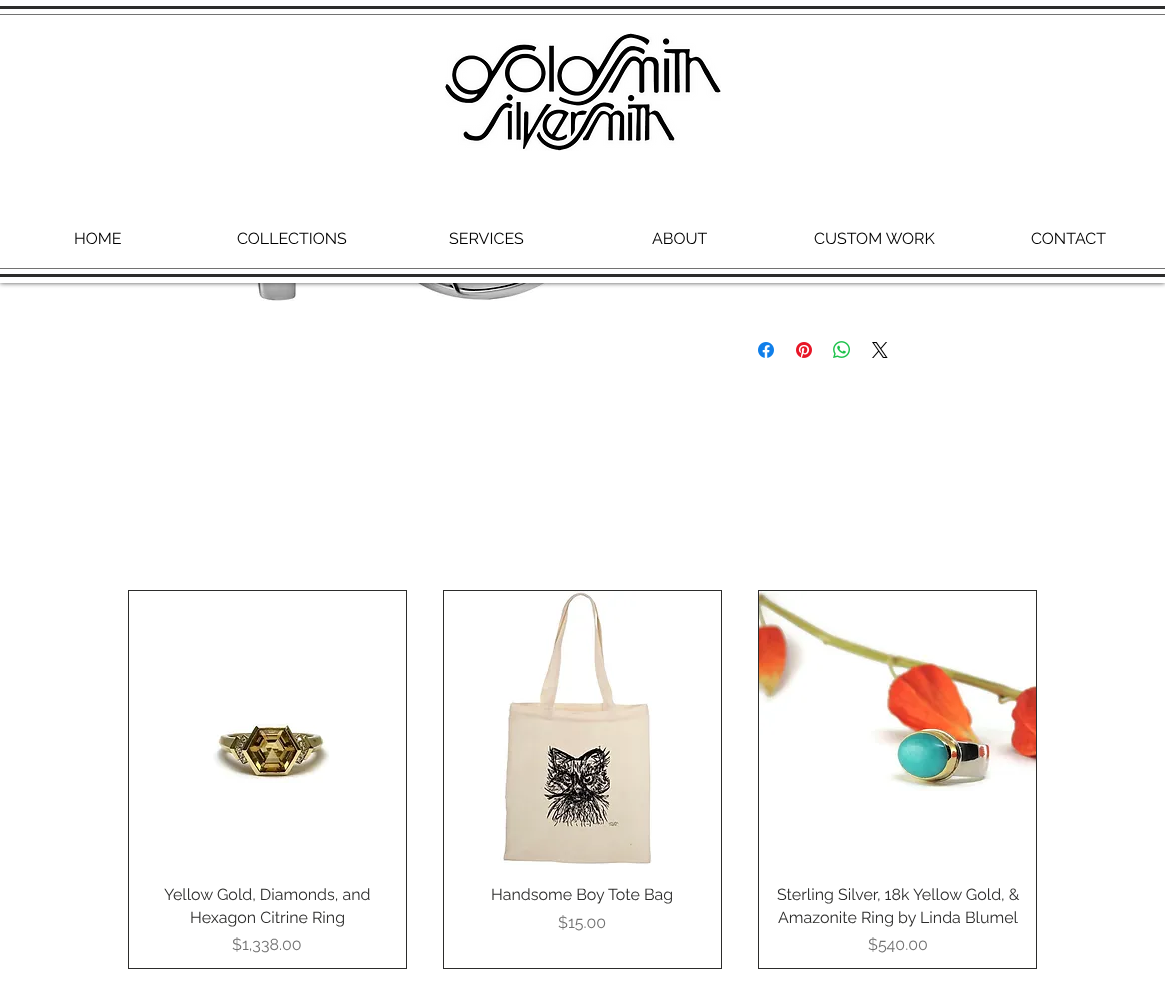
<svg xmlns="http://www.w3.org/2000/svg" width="1165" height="984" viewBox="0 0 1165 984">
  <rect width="100%" height="100%" fill="rgb(255,255,255)"/>
  <image x="253" y="283" width="350" height="18" href="pic2.png"/>
  <rect x="0" y="0" width="1165" height="283" fill="rgba(0,0,0,0.7)" filter="blur(2.5px)"/>
  <rect x="0" y="0" width="1165" height="283" fill="rgb(255,255,255)"/>
  <rect x="0" y="6" width="1165" height="3" fill="rgb(44,44,43)"/>
  <rect x="0" y="274" width="1165" height="3" fill="rgb(44,44,43)"/>
  <rect x="0" y="14" width="1165" height="1" fill="rgb(114,114,114)"/>
  <rect x="0" y="268" width="1165" height="1" fill="rgb(114,114,114)"/>
  <image x="445" y="33" width="276" height="118" href="pic1.png"/>
  <g font-family="Raleway" font-size="16" fill="rgb(0,0,0)">
    <text x="74" y="244">HOME</text>
    <text x="237" y="244">COLLECTIONS</text>
    <text x="449" y="244">SERVICES</text>
    <text x="652" y="244">ABOUT</text>
    <text x="814" y="244">CUSTOM WORK</text>
    <text x="1031" y="244">CONTACT</text>
  </g>
  <image x="758" y="342" width="16" height="16" href="pic3.png"/>
  <image x="796" y="342" width="16" height="16" href="pic4.png"/>
  <image x="833" y="341" width="17" height="17" href="pic5.png"/>
  <image x="872" y="342" width="16" height="16" href="pic6.png"/>
  <rect x="128.5" y="590.5" width="278" height="378" fill="none" stroke="rgb(44,44,43)"/>
  <image x="213" y="723" width="117" height="60" href="pic7.png"/>
  <g font-family="Raleway" font-size="16" fill="rgb(44,44,43)">
    <text x="164" y="900">Yellow Gold, Diamonds, and</text>
    <text x="190" y="923">Hexagon Citrine Ring</text>
  </g>
  <text x="232" y="950" font-family="Raleway" font-size="16" fill="rgb(114,114,114)">$1,338.00</text>
  <rect x="443.5" y="590.5" width="278" height="378" fill="none" stroke="rgb(44,44,43)"/>
  <image x="500" y="591" width="152" height="274" href="pic8.png"/>
  <text x="491" y="900" font-family="Raleway" font-size="16" fill="rgb(44,44,43)">Handsome Boy Tote Bag</text>
  <text x="558" y="928" font-family="Raleway" font-size="16" fill="rgb(114,114,114)">$15.00</text>
  <rect x="758.5" y="590.5" width="278" height="378" fill="none" stroke="rgb(44,44,43)"/>
  <image x="759" y="591" width="277" height="200" href="pic9.png"/>
  <g font-family="Raleway" font-size="16" fill="rgb(44,44,43)">
    <text x="777" y="900">Sterling Silver, 18k Yellow Gold, &amp;</text>
    <text x="778" y="923">Amazonite Ring by Linda Blumel</text>
  </g>
  <text x="868" y="950" font-family="Raleway" font-size="16" fill="rgb(114,114,114)">$540.00</text>
</svg>
